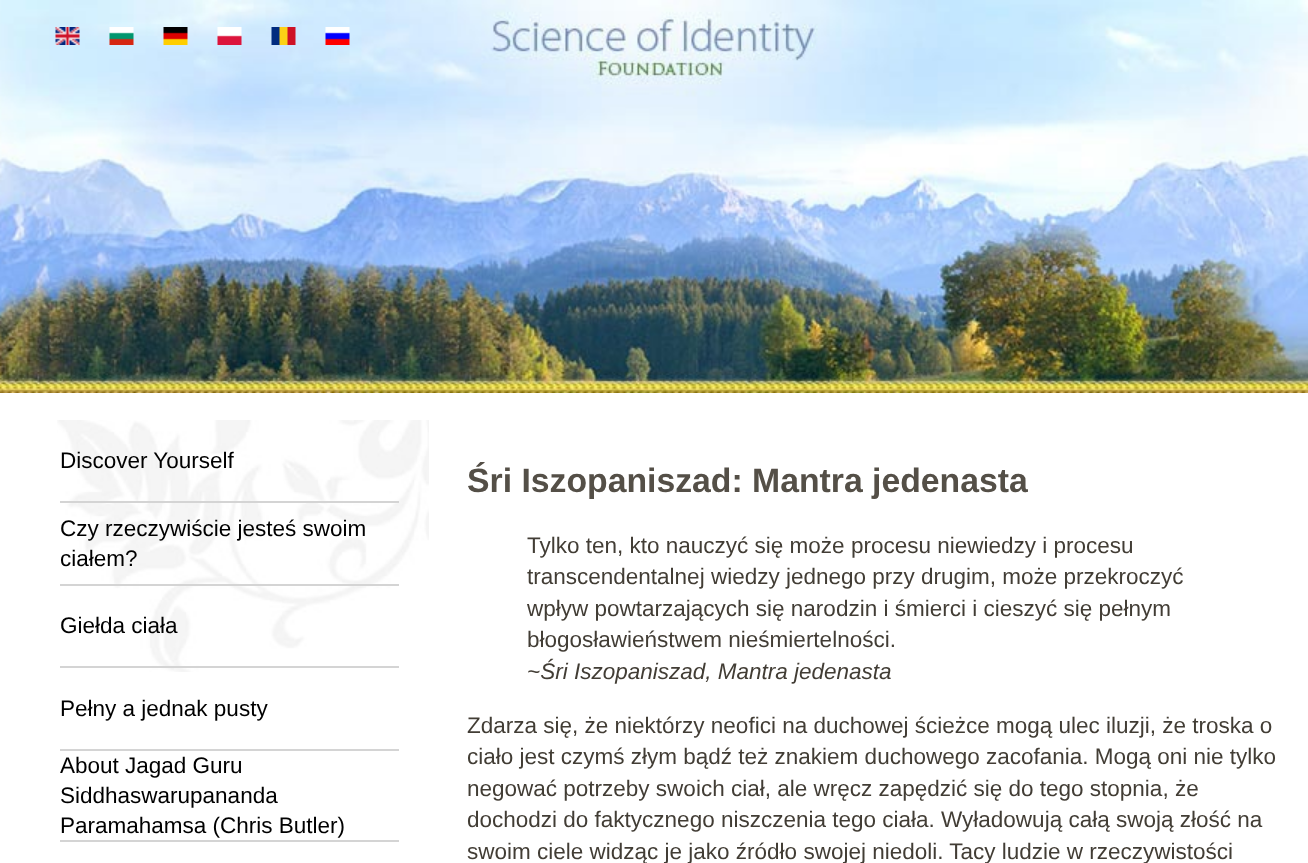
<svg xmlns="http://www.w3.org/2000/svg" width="1308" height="863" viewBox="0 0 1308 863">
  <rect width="100%" height="100%" fill="rgb(255,255,255)"/>
  <image x="0" y="0" width="1308" height="393" href="pic1.png"/>
  <image x="55" y="27" width="25" height="18" href="pic2.png"/>
  <image x="109" y="27" width="25" height="18" href="pic3.png"/>
  <image x="163" y="27" width="25" height="18" href="pic4.png"/>
  <image x="217" y="27" width="25" height="18" href="pic5.png"/>
  <image x="271" y="27" width="25" height="18" href="pic6.png"/>
  <image x="325" y="27" width="25" height="18" href="pic7.png"/>
  <image x="57" y="420" width="372" height="252" href="pic8.png"/>
  <rect x="60" y="501" width="339" height="2" fill="rgb(212,212,212)"/>
  <text x="60" y="468" font-family="Liberation Sans" font-size="22.5" fill="rgb(0,0,0)">Discover Yourself</text>
  <rect x="60" y="584" width="339" height="2" fill="rgb(212,212,212)"/>
  <g font-family="Liberation Sans" font-size="22.5" fill="rgb(0,0,0)">
    <text>
      <tspan x="60" y="536">Czy rzeczywiście jesteś swoim</tspan>
      <tspan x="60" y="566">ciałem?</tspan>
    </text>
  </g>
  <rect x="60" y="666" width="339" height="2" fill="rgb(212,212,212)"/>
  <text x="60" y="633" font-family="Liberation Sans" font-size="22.5" fill="rgb(0,0,0)">Giełda ciała</text>
  <rect x="60" y="749" width="339" height="2" fill="rgb(212,212,212)"/>
  <text x="60" y="716" font-family="Liberation Sans" font-size="22.5" fill="rgb(0,0,0)">Pełny a jednak pusty</text>
  <rect x="60" y="840" width="339" height="2" fill="rgb(212,212,212)"/>
  <g font-family="Liberation Sans" font-size="22.5" fill="rgb(0,0,0)">
    <text>
      <tspan x="60" y="773">About Jagad Guru</tspan>
      <tspan x="60" y="803">Siddhaswarupananda</tspan>
      <tspan x="60" y="833">Paramahamsa (Chris Butler)</tspan>
    </text>
  </g>
  <text x="467" y="492" font-family="Liberation Sans" font-size="33.75" font-weight="bold" fill="rgb(84,79,71)">Śri Iszopaniszad: Mantra jedenasta</text>
  <g font-family="Liberation Sans" font-size="22.5" fill="rgb(66,61,53)">
    <text>
      <tspan x="527" y="553">Tylko ten, kto nauczyć się może procesu niewiedzy i procesu</tspan>
      <tspan x="527" y="584">transcendentalnej wiedzy jednego przy drugim, może przekroczyć</tspan>
      <tspan x="527" y="616">wpływ powtarzających się narodzin i śmierci i cieszyć się pełnym</tspan>
      <tspan x="527" y="647">błogosławieństwem nieśmiertelności.</tspan>
    </text>
  </g>
  <text x="527" y="679" font-family="Liberation Sans" font-size="22.5" font-style="italic" fill="rgb(66,61,53)">~Śri Iszopaniszad, Mantra jedenasta</text>
  <g font-family="Liberation Sans" font-size="22.5" fill="rgb(66,61,53)">
    <text>
      <tspan x="467" y="733">Zdarza się, że niektórzy neofici na duchowej ścieżce mogą ulec iluzji, że troska o</tspan>
      <tspan x="467" y="764">ciało jest czymś złym bądź też znakiem duchowego zacofania. Mogą oni nie tylko</tspan>
      <tspan x="467" y="796">negować potrzeby swoich ciał, ale wręcz zapędzić się do tego stopnia, że</tspan>
      <tspan x="467" y="827">dochodzi do faktycznego niszczenia tego ciała. Wyładowują całą swoją złość na</tspan>
      <tspan x="467" y="859">swoim ciele widząc je jako źródło swojej niedoli. Tacy ludzie w rzeczywistości</tspan>
    </text>
  </g>
</svg>
